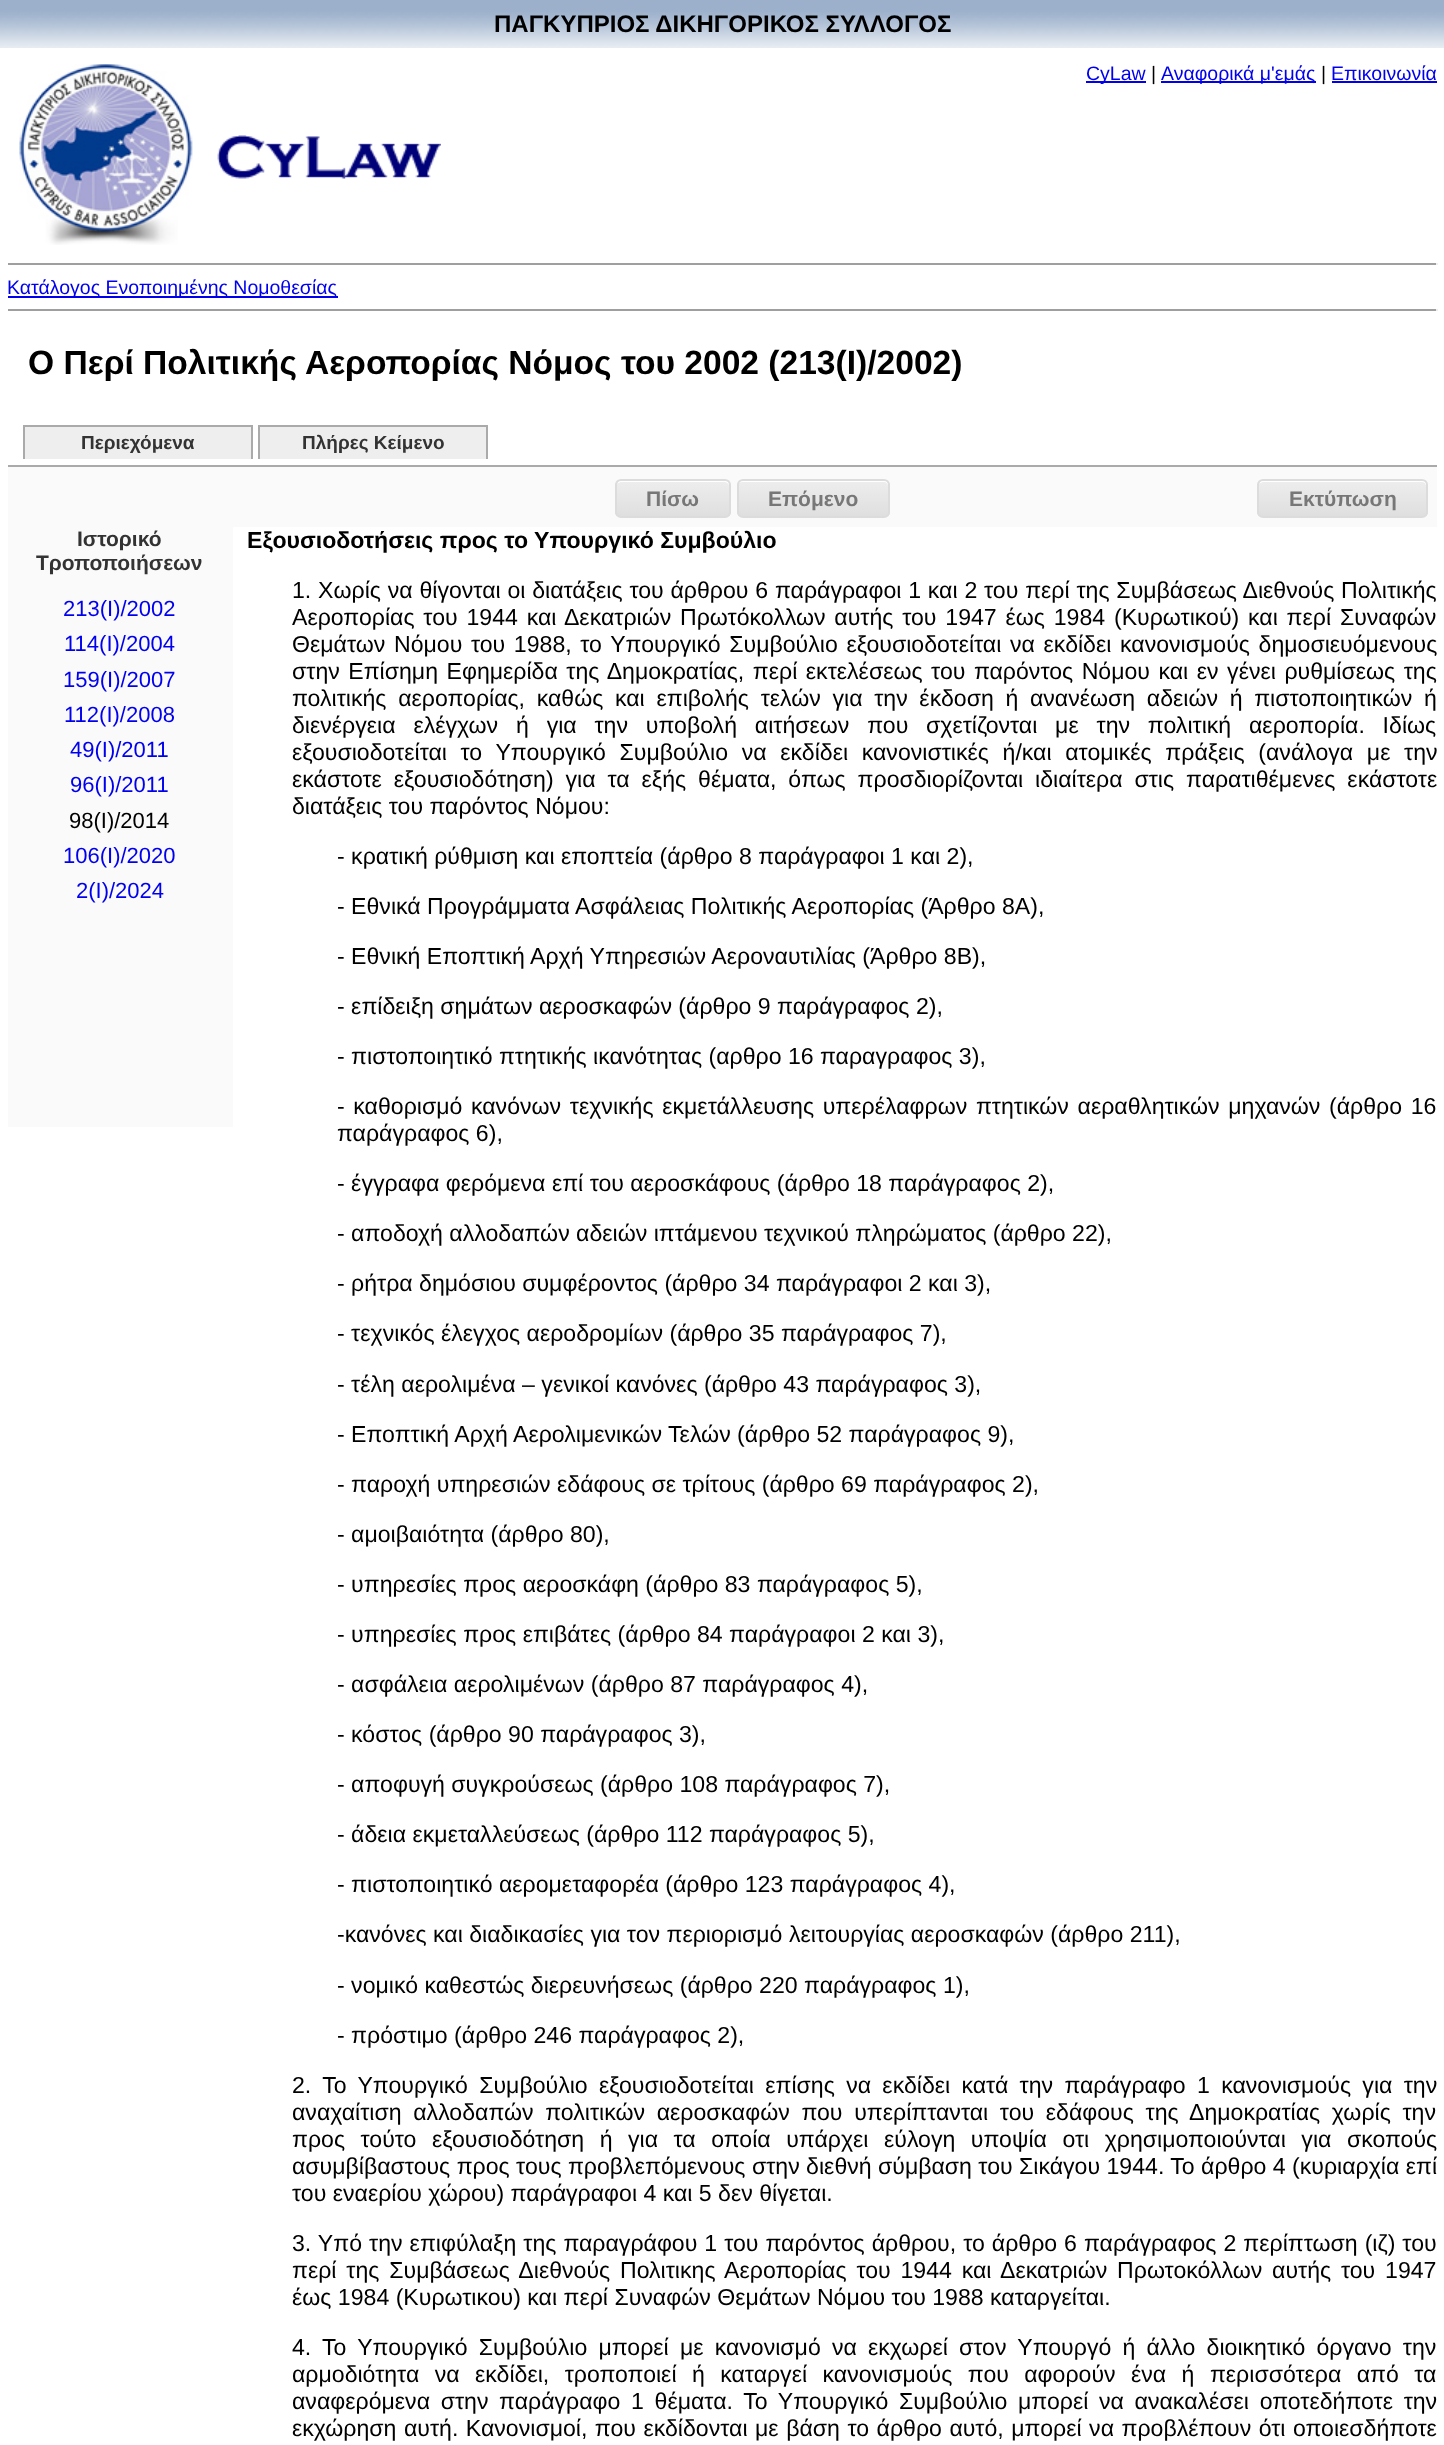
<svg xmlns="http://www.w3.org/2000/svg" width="1444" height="2445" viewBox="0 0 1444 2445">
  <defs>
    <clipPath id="clip1"><rect x="615" y="479" width="116" height="39" rx="6"/></clipPath>
    <linearGradient id="g1" gradientUnits="userSpaceOnUse" x1="617" y1="480" x2="617" y2="516"><stop offset="0.05" stop-color="rgb(237,237,237)"/><stop offset="1" stop-color="rgb(223,223,223)"/></linearGradient>
    <clipPath id="clip2"><rect x="737" y="479" width="153" height="39" rx="6"/></clipPath>
    <linearGradient id="g2" gradientUnits="userSpaceOnUse" x1="738" y1="480" x2="738" y2="516"><stop offset="0.05" stop-color="rgb(237,237,237)"/><stop offset="1" stop-color="rgb(223,223,223)"/></linearGradient>
    <clipPath id="clip3"><rect x="1257" y="479" width="171" height="39" rx="6"/></clipPath>
    <linearGradient id="g3" gradientUnits="userSpaceOnUse" x1="1259" y1="480" x2="1259" y2="516"><stop offset="0.05" stop-color="rgb(237,237,237)"/><stop offset="1" stop-color="rgb(223,223,223)"/></linearGradient>
  </defs>
  <rect width="100%" height="100%" fill="rgb(255,255,255)"/>
  <image x="0" y="0" width="1444" height="48" href="pic1.png"/>
  <text x="494" y="32" font-family="Liberation Sans" font-size="24" font-weight="bold" fill="rgb(0,0,0)">ΠΑΓΚΥΠΡΙΟΣ ΔΙΚΗΓΟΡΙΚΟΣ ΣΥΛΛΟΓΟΣ</text>
  <image x="19" y="64" width="174" height="181" href="pic2.png"/>
  <image x="217" y="135" width="224" height="44" href="pic3.png"/>
  <rect x="1086" y="81" width="60" height="2" fill="rgb(0,0,238)"/>
  <text x="1086" y="80" font-family="Liberation Sans" font-size="19.5" fill="rgb(0,0,238)">CyLaw</text>
  <text x="1151" y="80" font-family="Liberation Sans" font-size="19.5" fill="rgb(0,0,0)">|</text>
  <rect x="1161" y="81" width="155" height="2" fill="rgb(0,0,238)"/>
  <text x="1161" y="80" font-family="Liberation Sans" font-size="19.5" fill="rgb(0,0,238)">Αναφορικά μ'εμάς</text>
  <text x="1321" y="80" font-family="Liberation Sans" font-size="19.5" fill="rgb(0,0,0)">|</text>
  <text x="1331" y="80" font-family="Liberation Sans" font-size="19.5" fill="rgb(0,0,238)">Επικοινωνία</text>
  <rect x="1332" y="81" width="105" height="2" fill="rgb(0,0,238)"/>
  <rect x="8" y="263" width="1429" height="2" fill="rgb(159,159,159)"/>
  <rect x="1436" y="263" width="2" height="2" fill="rgb(238,238,238)"/>
  <rect x="8" y="296" width="330" height="2" fill="rgb(0,0,238)"/>
  <text x="7" y="294" font-family="Liberation Sans" font-size="19.5" fill="rgb(0,0,238)">Κατάλογος Ενοποιημένης Νομοθεσίας</text>
  <rect x="8" y="309" width="1429" height="2" fill="rgb(159,159,159)"/>
  <rect x="1436" y="309" width="2" height="2" fill="rgb(238,238,238)"/>
  <text x="28" y="374" font-family="Liberation Sans" font-size="33.6" font-weight="bold" fill="rgb(0,0,0)">Ο Περί Πολιτικής Αεροπορίας Νόμος του 2002 (213(I)/2002)</text>
  <rect x="8" y="465" width="1429" height="2" fill="rgb(170,170,170)"/>
  <rect x="25" y="427" width="226" height="32" fill="rgb(238,238,238)"/>
  <rect x="23" y="425" width="229" height="2" fill="rgb(170,170,170)"/>
  <rect x="251" y="425" width="2" height="34" fill="rgb(170,170,170)"/>
  <rect x="23" y="425" width="2" height="34" fill="rgb(170,170,170)"/>
  <text x="81" y="449" font-family="Liberation Sans" font-size="19" font-weight="bold" fill="rgb(51,51,51)">Περιεχόμενα</text>
  <rect x="260" y="427" width="226" height="32" fill="rgb(238,238,238)"/>
  <rect x="258" y="425" width="230" height="2" fill="rgb(170,170,170)"/>
  <rect x="486" y="425" width="2" height="34" fill="rgb(170,170,170)"/>
  <rect x="258" y="425" width="2" height="34" fill="rgb(170,170,170)"/>
  <text x="302" y="449" font-family="Liberation Sans" font-size="19" font-weight="bold" fill="rgb(51,51,51)">Πλήρες Κείμενο</text>
  <rect x="8" y="467" width="1429" height="60" fill="rgb(250,250,250)"/>
  <g clip-path="url(#clip1)">
    <rect x="615" y="480" width="116" height="36" fill="url(#g1)"/>
  </g>
  <path d="M621 482H724C727 482 729 484 729 486V485C729 482 727 480 724 480H622C620 480 618 482 617 484C618 483 620 482 621 482Z" fill="rgb(255,255,255)"/>
  <rect x="616" y="480" width="114" height="37" rx="5" fill="none" stroke="rgb(220,220,220)" stroke-width="2"/>
  <text x="646" y="506" font-family="Liberation Sans" font-size="21" font-weight="bold" fill="rgb(119,119,119)">Πίσω</text>
  <g clip-path="url(#clip2)">
    <rect x="737" y="480" width="153" height="36" fill="url(#g2)"/>
  </g>
  <path d="M742 482H884C886 482 888 484 888 486V485C888 482 886 480 883 480H743C740 480 738 482 738 485V486C738 484 740 482 742 482Z" fill="rgb(255,255,255)"/>
  <rect x="738" y="480" width="151" height="37" rx="5" fill="none" stroke="rgb(220,220,220)" stroke-width="2"/>
  <text x="768" y="506" font-family="Liberation Sans" font-size="21" font-weight="bold" fill="rgb(119,119,119)">Επόμενο</text>
  <g clip-path="url(#clip3)">
    <rect x="1257" y="480" width="171" height="36" fill="url(#g3)"/>
  </g>
  <path d="M1263 482H1422C1428 482 1426 492 1426 495V514C1427 513 1427 512 1427 511V485C1427 482 1425 480 1422 480H1264C1262 480 1260 482 1259 484C1260 483 1262 482 1263 482Z" fill="rgb(255,255,255)"/>
  <rect x="1258" y="480" width="169" height="37" rx="5" fill="none" stroke="rgb(220,220,220)" stroke-width="2"/>
  <text x="1289" y="506" font-family="Liberation Sans" font-size="21" font-weight="bold" fill="rgb(119,119,119)">Εκτύπωση</text>
  <rect x="8" y="527" width="225" height="600" fill="rgb(250,250,250)"/>
  <g font-family="Liberation Sans" font-size="21" font-weight="bold" fill="rgb(51,51,51)">
    <text x="77" y="546">Ιστορικό</text>
    <text x="36" y="570">Τροποποιήσεων</text>
  </g>
  <g font-family="Liberation Sans" font-size="22" fill="rgb(0,0,238)">
    <text x="63" y="616">213(I)/2002</text>
    <text x="64" y="651">114(Ι)/2004</text>
    <text x="63" y="687">159(Ι)/2007</text>
    <text x="64" y="722">112(Ι)/2008</text>
    <text>
      <tspan x="70" y="757">49(Ι)/2011</tspan>
      <tspan x="70" y="792">96(Ι)/2011</tspan>
    </text>
  </g>
  <text x="69" y="828" font-family="Liberation Sans" font-size="22" fill="rgb(0,0,0)">98(Ι)/2014</text>
  <g font-family="Liberation Sans" font-size="22" fill="rgb(0,0,238)">
    <text x="63" y="863">106(I)/2020</text>
    <text x="76" y="898">2(I)/2024</text>
  </g>
  <text x="247" y="548" font-family="Liberation Sans" font-size="23.1" font-weight="bold" fill="rgb(0,0,0)">Εξουσιοδοτήσεις προς το Υπουργικό Συμβούλιο</text>
  <g font-family="Liberation Sans" font-size="23.1" fill="rgb(0,0,0)">
    <text>
      <tspan x="292" y="598" word-spacing="0.4">1. Χωρίς να θίγονται οι διατάξεις του άρθρου 6 παράγραφοι 1 και 2 του περί της Συμβάσεως Διεθνούς Πολιτικής</tspan>
      <tspan x="292" y="625" word-spacing="2.4">Αεροπορίας του 1944 και Δεκατριών Πρωτόκολλων αυτής του 1947 έως 1984 (Κυρωτικού) και περί Συναφών</tspan>
      <tspan x="292" y="652" word-spacing="2.25">Θεμάτων Νόμου του 1988, το Υπουργικό Συμβούλιο εξουσιοδοτείται να εκδίδει κανονισμούς δημοσιευόμενους</tspan>
      <tspan x="292" y="679" word-spacing="2.1">στην Επίσημη Εφημερίδα της Δημοκρατίας, περί εκτελέσεως του παρόντος Νόμου και εν γένει ρυθμίσεως της</tspan>
      <tspan x="292" y="706" word-spacing="5.25">πολιτικής αεροπορίας, καθώς και επιβολής τελών για την έκδοση ή ανανέωση αδειών ή πιστοποιητικών ή</tspan>
      <tspan x="292" y="733" word-spacing="11.4">διενέργεια ελέγχων ή για την υποβολή αιτήσεων που σχετίζονται με την πολιτική αεροπορία. Ιδίως</tspan>
      <tspan x="292" y="760" word-spacing="7.25">εξουσιοδοτείται το Υπουργικό Συμβούλιο να εκδίδει κανονιστικές ή/και ατομικές πράξεις (ανάλογα με την</tspan>
      <tspan x="292" y="787" word-spacing="5.5">εκάστοτε εξουσιοδότηση) για τα εξής θέματα, όπως προσδιορίζονται ιδιαίτερα στις παρατιθέμενες εκάστοτε</tspan>
      <tspan x="292" y="814">διατάξεις του παρόντος Νόμου:</tspan>
    </text>
    <text x="337" y="864">- κρατική ρύθμιση και εποπτεία (άρθρο 8 παράγραφοι 1 και 2),</text>
    <text x="337" y="914">- Εθνικά Προγράμματα Ασφάλειας Πολιτικής Αεροπορίας (Άρθρο 8Α),</text>
    <text x="337" y="964">- Εθνική Εποπτική Αρχή Υπηρεσιών Αεροναυτιλίας (Άρθρο 8Β),</text>
    <text x="337" y="1014">- επίδειξη σημάτων αεροσκαφών (άρθρο 9 παράγραφος 2),</text>
    <text x="337" y="1064">- πιστοποιητικό πτητικής ικανότητας (αρθρο 16 παραγραφος 3),</text>
    <text>
      <tspan x="337" y="1114" word-spacing="2.25">- καθορισμό κανόνων τεχνικής εκμετάλλευσης υπερέλαφρων πτητικών αεραθλητικών μηχανών (άρθρο 16</tspan>
      <tspan x="337" y="1141">παράγραφος 6),</tspan>
    </text>
    <text x="337" y="1191">- έγγραφα φερόμενα επί του αεροσκάφους (άρθρο 18 παράγραφος 2),</text>
    <text x="337" y="1241">- αποδοχή αλλοδαπών αδειών ιπτάμενου τεχνικού πληρώματος (άρθρο 22),</text>
    <text x="337" y="1291">- ρήτρα δημόσιου συμφέροντος (άρθρο 34 παράγραφοι 2 και 3),</text>
    <text x="337" y="1341">- τεχνικός έλεγχος αεροδρομίων (άρθρο 35 παράγραφος 7),</text>
    <text x="337" y="1392">- τέλη αερολιμένα – γενικοί κανόνες (άρθρο 43 παράγραφος 3),</text>
    <text x="337" y="1442">- Εποπτική Αρχή Αερολιμενικών Τελών (άρθρο 52 παράγραφος 9),</text>
    <text x="337" y="1492">- παροχή υπηρεσιών εδάφους σε τρίτους (άρθρο 69 παράγραφος 2),</text>
    <text x="337" y="1542">- αμοιβαιότητα (άρθρο 80),</text>
    <text x="337" y="1592">- υπηρεσίες προς αεροσκάφη (άρθρο 83 παράγραφος 5),</text>
    <text x="337" y="1642">- υπηρεσίες προς επιβάτες (άρθρο 84 παράγραφοι 2 και 3),</text>
    <text x="337" y="1692">- ασφάλεια αερολιμένων (άρθρο 87 παράγραφος 4),</text>
    <text x="337" y="1742">- κόστος (άρθρο 90 παράγραφος 3),</text>
    <text x="337" y="1792">- αποφυγή συγκρούσεως (άρθρο 108 παράγραφος 7),</text>
    <text x="337" y="1842">- άδεια εκμεταλλεύσεως (άρθρο 112 παράγραφος 5),</text>
    <text x="337" y="1892">- πιστοποιητικό αερομεταφορέα (άρθρο 123 παράγραφος 4),</text>
    <text x="337" y="1942">-κανόνες και διαδικασίες για τον περιορισμό λειτουργίας αεροσκαφών (άρθρο 211),</text>
    <text x="337" y="1993">- νομικό καθεστώς διερευνήσεως (άρθρο 220 παράγραφος 1),</text>
    <text x="337" y="2043">- πρόστιμο (άρθρο 246 παράγραφος 2),</text>
    <text>
      <tspan x="292" y="2093" word-spacing="4.9">2. Το Υπουργικό Συμβούλιο εξουσιοδοτείται επίσης να εκδίδει κατά την παράγραφο 1 κανονισμούς για την</tspan>
      <tspan x="292" y="2120" word-spacing="5.25">αναχαίτιση αλλοδαπών πολιτικών αεροσκαφών που υπερίπτανται του εδάφους της Δημοκρατίας χωρίς την</tspan>
      <tspan x="292" y="2147" word-spacing="9.1">προς τούτο εξουσιοδότηση ή για τα οποία υπάρχει εύλογη υποψία οτι χρησιμοποιούνται για σκοπούς</tspan>
      <tspan x="292" y="2174">ασυμβίβαστους προς τους προβλεπόμενους στην διεθνή σύμβαση του Σικάγου 1944. Το άρθρο 4 (κυριαρχία επί</tspan>
      <tspan x="292" y="2201">του εναερίου χώρου) παράγραφοι 4 και 5 δεν θίγεται.</tspan>
    </text>
    <text>
      <tspan x="292" y="2251" word-spacing="0.6">3. Υπό την επιφύλαξη της παραγράφου 1 του παρόντος άρθρου, το άρθρο 6 παράγραφος 2 περίπτωση (ιζ) του</tspan>
      <tspan x="292" y="2278" word-spacing="3.4">περί της Συμβάσεως Διεθνούς Πολιτικης Αεροπορίας του 1944 και Δεκατριών Πρωτοκόλλων αυτής του 1947</tspan>
      <tspan x="292" y="2305">έως 1984 (Κυρωτικου) και περί Συναφών Θεμάτων Νόμου του 1988 καταργείται.</tspan>
    </text>
    <text>
      <tspan x="292" y="2355" word-spacing="4.75">4. Το Υπουργικό Συμβούλιο μπορεί με κανονισμό να εκχωρεί στον Υπουργό ή άλλο διοικητικό όργανο την</tspan>
      <tspan x="292" y="2382" word-spacing="9">αρμοδιότητα να εκδίδει, τροποποιεί ή καταργεί κανονισμούς που αφορούν ένα ή περισσότερα από τα</tspan>
      <tspan x="292" y="2409" word-spacing="4.25">αναφερόμενα στην παράγραφο 1 θέματα. Το Υπουργικό Συμβούλιο μπορεί να ανακαλέσει οποτεδήποτε την</tspan>
      <tspan x="292" y="2436" word-spacing="1.1">εκχώρηση αυτή. Κανονισμοί, που εκδίδονται με βάση το άρθρο αυτό, μπορεί να προβλέπουν ότι οποιεσδήποτε</tspan>
    </text>
  </g>
</svg>
